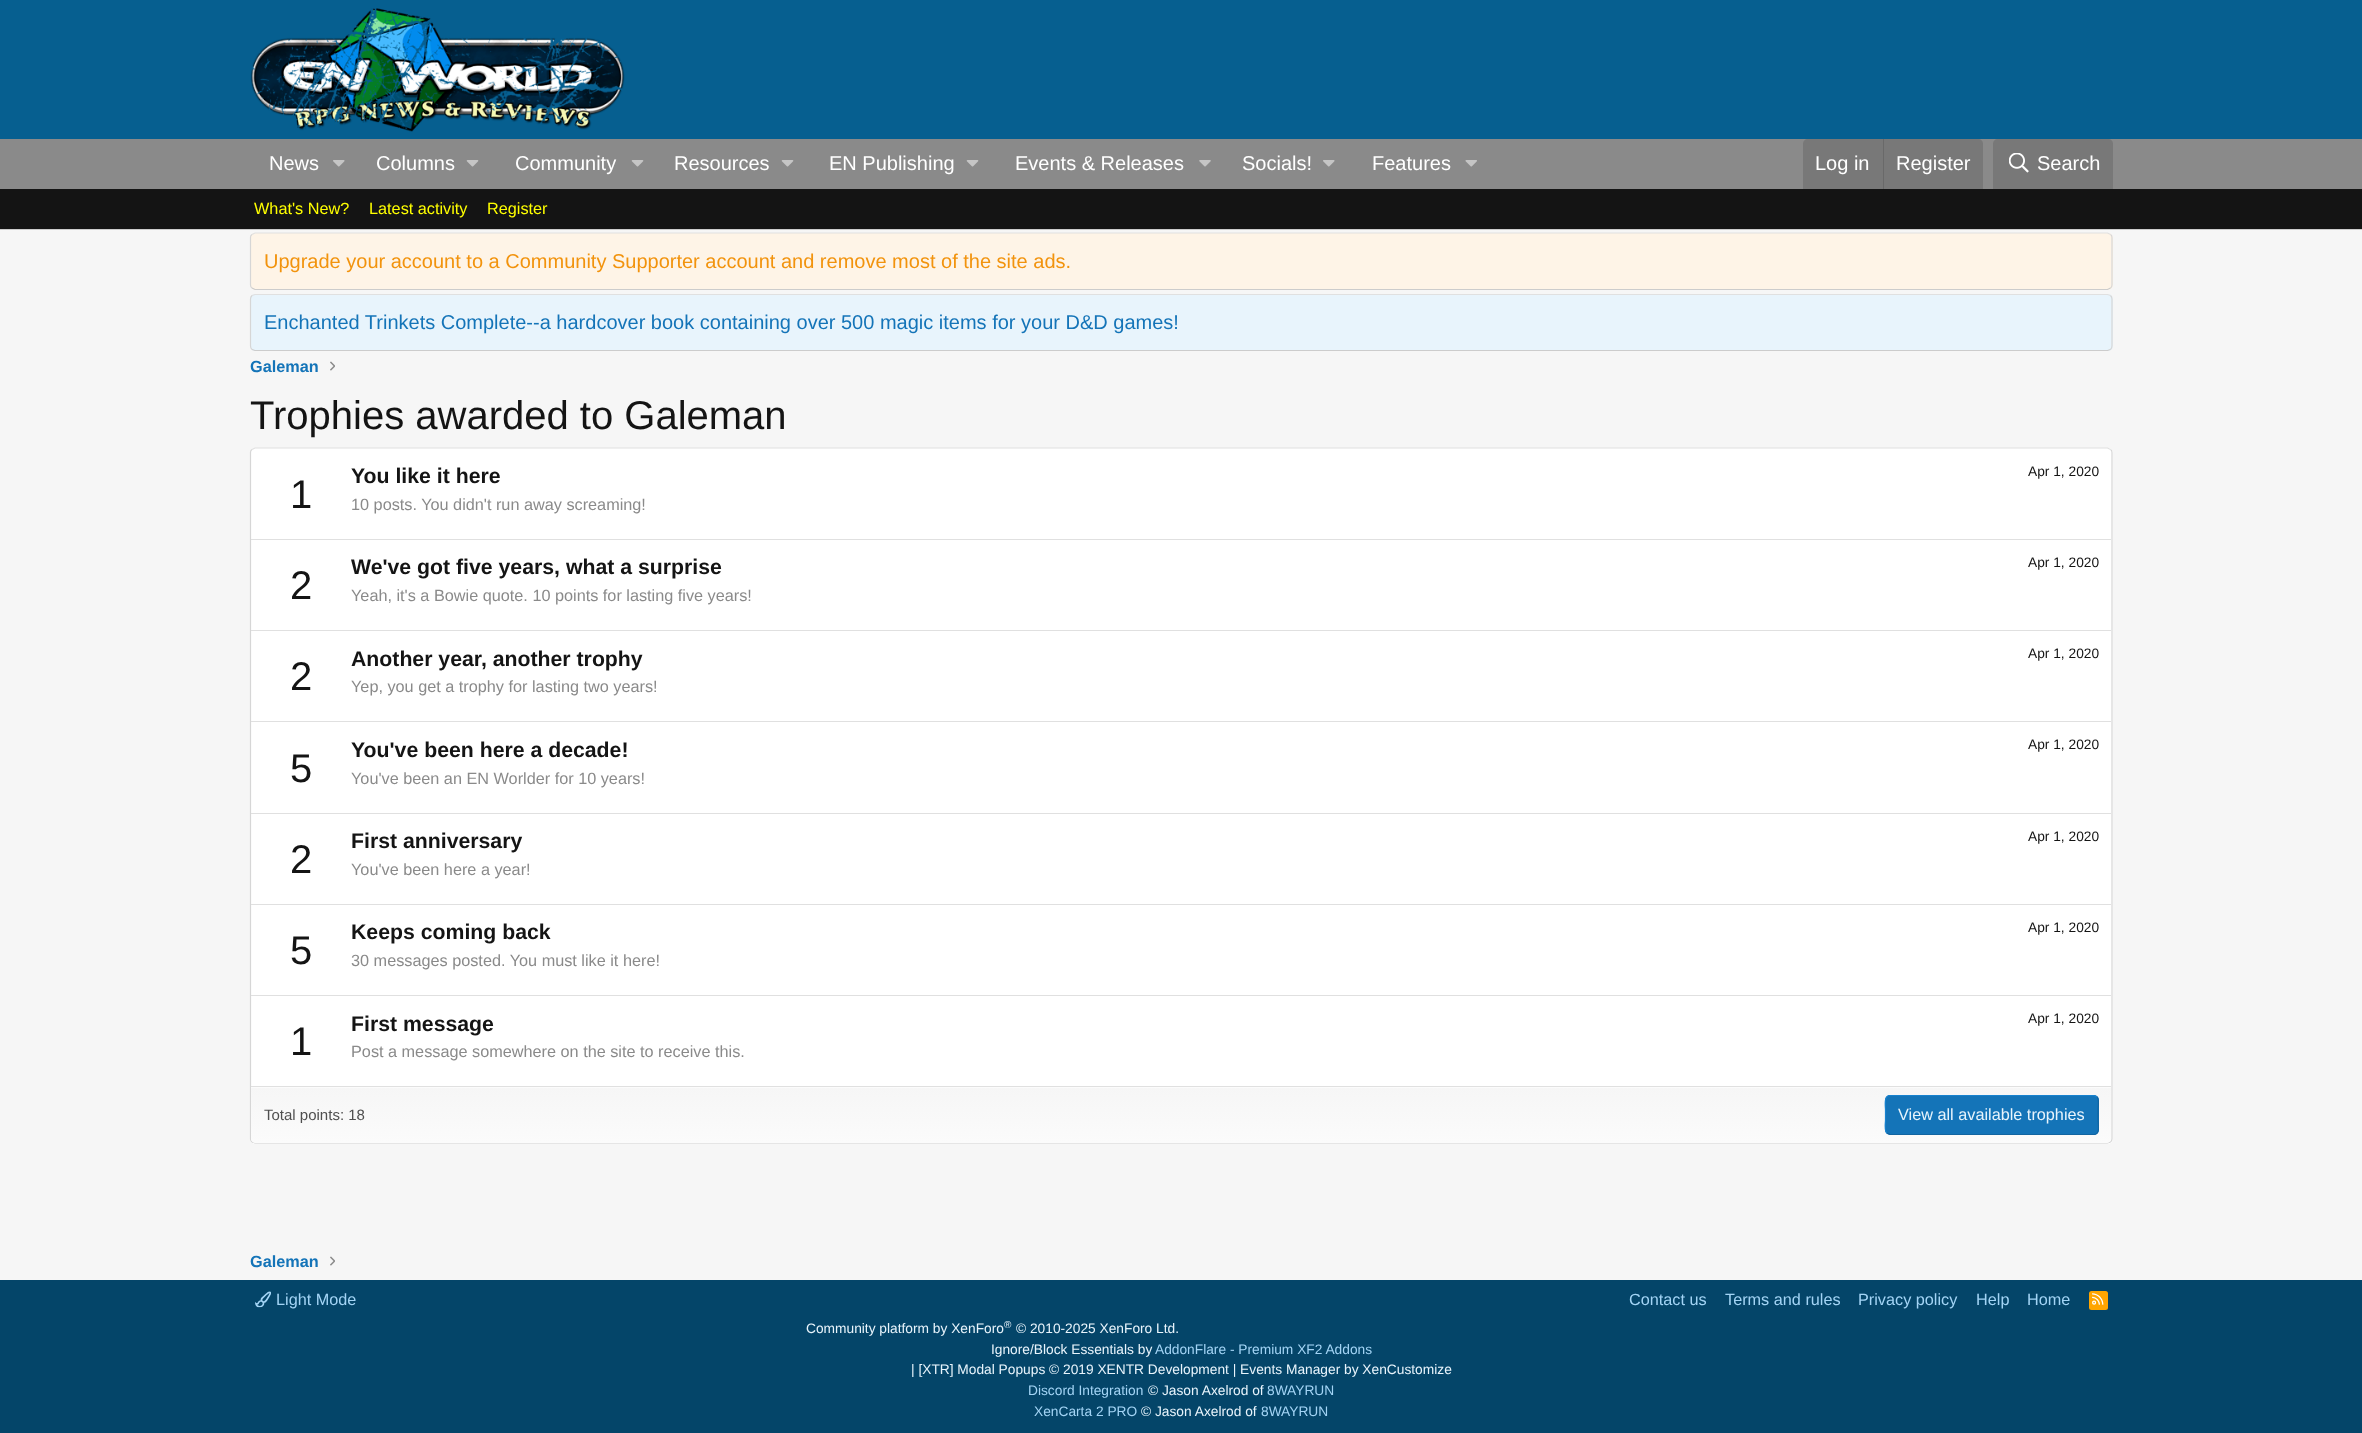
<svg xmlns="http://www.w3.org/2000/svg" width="2362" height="1433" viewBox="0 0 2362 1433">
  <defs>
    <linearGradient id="g1" gradientUnits="userSpaceOnUse" x1="1181" y1="1032" x2="1181" y2="1088"><stop offset="0" stop-color="rgb(246,246,246)"/><stop offset="1" stop-color="rgb(251,251,251)"/></linearGradient>
    <linearGradient id="g2" gradientUnits="userSpaceOnUse" x1="1181" y1="1087" x2="1181" y2="1143"><stop offset="0" stop-color="rgb(246,246,246)"/><stop offset="1" stop-color="rgb(251,251,251)"/></linearGradient>
  </defs>
  <rect width="100%" height="100%" fill="rgb(246,246,246)"/>
  <rect x="0" y="0" width="2362" height="139" fill="rgb(6,95,144)"/>
  <image x="250" y="8" width="375" height="124" href="pic1.png"/>
  <rect x="0" y="139" width="2362" height="50" fill="rgb(138,138,138)"/>
  <text x="269" y="170" font-family="Liberation Sans" font-size="20" fill="rgb(255,255,255)">News</text>
  <image x="333" y="160" width="12" height="7" href="pic2.png"/>
  <text x="376" y="170" font-family="Liberation Sans" font-size="20" fill="rgb(255,255,255)">Columns</text>
  <image x="466" y="160" width="13" height="7" href="pic3.png"/>
  <text x="515" y="170" font-family="Liberation Sans" font-size="20" fill="rgb(255,255,255)">Community</text>
  <image x="631" y="160" width="13" height="7" href="pic3.png"/>
  <text x="674" y="170" font-family="Liberation Sans" font-size="20" fill="rgb(255,255,255)">Resources</text>
  <image x="781" y="160" width="13" height="7" href="pic3.png"/>
  <text x="829" y="170" font-family="Liberation Sans" font-size="20" fill="rgb(255,255,255)">EN Publishing</text>
  <image x="966" y="160" width="13" height="7" href="pic3.png"/>
  <text x="1015" y="170" font-family="Liberation Sans" font-size="20" fill="rgb(255,255,255)">Events &amp; Releases</text>
  <image x="1199" y="160" width="12" height="7" href="pic4.png"/>
  <text x="1242" y="170" font-family="Liberation Sans" font-size="20" fill="rgb(255,255,255)">Socials!</text>
  <image x="1323" y="160" width="12" height="7" href="pic2.png"/>
  <text x="1372" y="170" font-family="Liberation Sans" font-size="20" fill="rgb(255,255,255)">Features</text>
  <image x="1465" y="160" width="12" height="7" href="pic5.png"/>
  <path d="M1808 139H1978C1981 139 1983 141 1983 144V189H1803V144C1803 141 1805 139 1808 139Z" fill="rgb(120,120,120)"/>
  <text x="1815" y="170" font-family="Liberation Sans" font-size="20" fill="rgb(255,255,255)">Log in</text>
  <rect x="1883" y="139" width="1" height="50" fill="rgb(105,105,105)"/>
  <text x="1896" y="170" font-family="Liberation Sans" font-size="20" fill="rgb(255,255,255)">Register</text>
  <path d="M1998 139H2108C2111 139 2113 141 2113 144V189H1993V144C1993 141 1995 139 1998 139Z" fill="rgb(120,120,120)"/>
  <image x="2009" y="153" width="20" height="20" href="pic6.png"/>
  <text x="2037" y="170" font-family="Liberation Sans" font-size="20" fill="rgb(255,255,255)">Search</text>
  <rect x="0" y="189" width="2362" height="40" fill="rgb(20,20,20)"/>
  <rect x="0" y="229" width="2362" height="1" fill="rgb(204,204,204)"/>
  <g font-family="Liberation Sans" font-size="16.25" fill="rgb(255,255,0)">
    <text x="254" y="214">What's New?</text>
    <text x="369" y="214">Latest activity</text>
    <text x="487" y="214">Register</text>
  </g>
  <rect x="250" y="233" width="1863" height="57" rx="5" fill="rgb(254,244,231)"/>
  <path d="M252 234.5L255 233H2107.5L2110.5 234.5" fill="none" stroke="rgb(224,224,224)" stroke-width="1.2"/>
  <path d="M2110.5 234.5C2111.5 235 2112 236.5 2112 237.5V285C2112 286 2111.5 287.5 2110.5 288" fill="none" stroke="rgb(214,214,214)" stroke-width="1.2"/>
  <path d="M2110.5 288L2107.5 289.5H255L252 288" fill="none" stroke="rgb(204,204,204)" stroke-width="1.2"/>
  <path d="M252 288C251 287.5 250.5 286 250.5 285V237.5C250.5 236.5 251 235 252 234.5" fill="none" stroke="rgb(214,214,214)" stroke-width="1.2"/>
  <text x="264" y="268" font-family="Liberation Sans" font-size="20" fill="rgb(242,147,13)">Upgrade your account to a Community Supporter account and remove most of the site ads.</text>
  <rect x="250" y="294" width="1863" height="57" rx="5" fill="rgb(232,244,252)"/>
  <path d="M252 295.5L255 294.5H2107.5L2110.5 295.5" fill="none" stroke="rgb(224,224,224)" stroke-width="1.2"/>
  <path d="M2110.5 295.5C2111.5 296.5 2112 297.5 2112 299V346C2112 347.5 2111.5 348.5 2110.5 349.5" fill="none" stroke="rgb(214,214,214)" stroke-width="1.2"/>
  <path d="M2110.5 349.5L2107.5 350.5H255L252 349.5" fill="none" stroke="rgb(204,204,204)" stroke-width="1.2"/>
  <path d="M252 349.5C251 348.5 250.5 347.5 250.5 346V299C250.5 297.5 251 296.5 252 295.5" fill="none" stroke="rgb(214,214,214)" stroke-width="1.2"/>
  <text x="264" y="329" font-family="Liberation Sans" font-size="20" fill="rgb(20,116,184)">Enchanted Trinkets Complete--a hardcover book containing over 500 magic items for your D&amp;D games!</text>
  <text x="250" y="372" font-family="Liberation Sans" font-size="16.25" font-weight="bold" fill="rgb(20,116,184)">Galeman</text>
  <image x="330" y="361" width="5" height="10" href="pic7.png"/>
  <text x="250" y="429" font-family="Liberation Sans" font-size="40" fill="rgb(20,20,20)">Trophies awarded to Galeman</text>
  <rect x="250" y="448" width="1863" height="696" rx="5" fill="rgb(255,255,255)"/>
  <path d="M252 449.5L255 448H2107.5L2110.5 449.5" fill="none" stroke="rgb(224,224,224)" stroke-width="1.2"/>
  <path d="M2110.5 449.5C2111.5 450 2112 451.5 2112 452.5V1139C2112 1140 2111.5 1141 2110.5 1142" fill="none" stroke="rgb(214,214,214)" stroke-width="1.2"/>
  <path d="M2110.5 1142L2107.5 1143H255L252 1142" fill="none" stroke="rgb(204,204,204)" stroke-width="1.2"/>
  <path d="M252 1142C251 1141 250.5 1140 250.5 1139V452.5C250.5 451.5 251 450 252 449.5" fill="none" stroke="rgb(214,214,214)" stroke-width="1.2"/>
  <text x="290" y="508" font-family="Liberation Sans" font-size="40" fill="rgb(20,20,20)">1</text>
  <text x="351" y="483" font-family="Liberation Sans" font-size="21.25" font-weight="bold" fill="rgb(20,20,20)">You like it here</text>
  <text x="2028" y="476" font-family="Liberation Sans" font-size="13.75" fill="rgb(20,20,20)">Apr 1, 2020</text>
  <text x="351" y="510" font-family="Liberation Sans" font-size="16.25" fill="rgb(138,138,138)">10 posts. You didn't run away screaming!</text>
  <rect x="251" y="539" width="1860" height="1" fill="rgb(224,224,224)"/>
  <text x="290" y="599" font-family="Liberation Sans" font-size="40" fill="rgb(20,20,20)">2</text>
  <text x="351" y="574" font-family="Liberation Sans" font-size="21.25" font-weight="bold" fill="rgb(20,20,20)">We've got five years, what a surprise</text>
  <text x="2028" y="567" font-family="Liberation Sans" font-size="13.75" fill="rgb(20,20,20)">Apr 1, 2020</text>
  <text x="351" y="601" font-family="Liberation Sans" font-size="16.25" fill="rgb(138,138,138)">Yeah, it's a Bowie quote. 10 points for lasting five years!</text>
  <rect x="251" y="630" width="1860" height="1" fill="rgb(224,224,224)"/>
  <text x="290" y="690" font-family="Liberation Sans" font-size="40" fill="rgb(20,20,20)">2</text>
  <text x="351" y="666" font-family="Liberation Sans" font-size="21.25" font-weight="bold" fill="rgb(20,20,20)">Another year, another trophy</text>
  <text x="2028" y="658" font-family="Liberation Sans" font-size="13.75" fill="rgb(20,20,20)">Apr 1, 2020</text>
  <text x="351" y="692" font-family="Liberation Sans" font-size="16.25" fill="rgb(138,138,138)">Yep, you get a trophy for lasting two years!</text>
  <rect x="251" y="721" width="1860" height="1" fill="rgb(224,224,224)"/>
  <text x="290" y="782" font-family="Liberation Sans" font-size="40" fill="rgb(20,20,20)">5</text>
  <text x="351" y="757" font-family="Liberation Sans" font-size="21.25" font-weight="bold" fill="rgb(20,20,20)">You've been here a decade!</text>
  <text x="2028" y="749" font-family="Liberation Sans" font-size="13.75" fill="rgb(20,20,20)">Apr 1, 2020</text>
  <text x="351" y="784" font-family="Liberation Sans" font-size="16.25" fill="rgb(138,138,138)">You've been an EN Worlder for 10 years!</text>
  <rect x="251" y="813" width="1860" height="1" fill="rgb(224,224,224)"/>
  <text x="290" y="873" font-family="Liberation Sans" font-size="40" fill="rgb(20,20,20)">2</text>
  <text x="351" y="848" font-family="Liberation Sans" font-size="21.25" font-weight="bold" fill="rgb(20,20,20)">First anniversary</text>
  <text x="2028" y="841" font-family="Liberation Sans" font-size="13.75" fill="rgb(20,20,20)">Apr 1, 2020</text>
  <text x="351" y="875" font-family="Liberation Sans" font-size="16.25" fill="rgb(138,138,138)">You've been here a year!</text>
  <rect x="251" y="904" width="1860" height="1" fill="rgb(224,224,224)"/>
  <text x="290" y="964" font-family="Liberation Sans" font-size="40" fill="rgb(20,20,20)">5</text>
  <text x="351" y="939" font-family="Liberation Sans" font-size="21.25" font-weight="bold" fill="rgb(20,20,20)">Keeps coming back</text>
  <text x="2028" y="932" font-family="Liberation Sans" font-size="13.75" fill="rgb(20,20,20)">Apr 1, 2020</text>
  <text x="351" y="966" font-family="Liberation Sans" font-size="16.25" fill="rgb(138,138,138)">30 messages posted. You must like it here!</text>
  <rect x="251" y="995" width="1860" height="1" fill="rgb(224,224,224)"/>
  <text x="290" y="1055" font-family="Liberation Sans" font-size="40" fill="rgb(20,20,20)">1</text>
  <text x="351" y="1031" font-family="Liberation Sans" font-size="21.25" font-weight="bold" fill="rgb(20,20,20)">First message</text>
  <text x="2028" y="1023" font-family="Liberation Sans" font-size="13.75" fill="rgb(20,20,20)">Apr 1, 2020</text>
  <text x="351" y="1057" font-family="Liberation Sans" font-size="16.25" fill="rgb(138,138,138)">Post a message somewhere on the site to receive this.</text>
  <rect x="251" y="1087" width="1860" height="1" fill="url(#g1)"/>
  <path d="M251 1088H2111V1139C2111 1141 2109 1143 2107 1143H255C253 1143 251 1141 251 1139Z" fill="url(#g2)"/>
  <rect x="251" y="1086" width="1860" height="1" fill="rgb(224,224,224)"/>
  <text x="264" y="1120" font-family="Liberation Sans" font-size="15" fill="rgb(79,79,79)">Total points: 18</text>
  <rect x="1885" y="1095" width="214" height="40" rx="5" fill="rgb(20,116,184)"/>
  <path d="M2097 1097C2099.5 1099.5 2098 1107 2098 1110V1120C2098 1123.5 2100.5 1134.5 2094 1134.5H1890L1887 1133" fill="none" stroke="rgb(18,101,161)" stroke-width="1.2"/>
  <path d="M1887 1133C1884 1130.5 1885.5 1123 1885.5 1120V1110C1885.5 1106.5 1883.5 1095.5 1890 1095.5H2094L2097 1097" fill="none" stroke="rgb(23,130,207)" stroke-width="1.2"/>
  <text x="1898" y="1120" font-family="Liberation Sans" font-size="16.25" fill="rgb(232,244,252)">View all available trophies</text>
  <text x="250" y="1267" font-family="Liberation Sans" font-size="16.25" font-weight="bold" fill="rgb(20,116,184)">Galeman</text>
  <image x="330" y="1256" width="5" height="10" href="pic7.png"/>
  <rect x="0" y="1280" width="2362" height="153" fill="rgb(4,69,105)"/>
  <image x="255" y="1291" width="16" height="17" href="pic8.png"/>
  <g font-family="Liberation Sans" font-size="16.25" fill="rgb(163,212,245)">
    <text x="276" y="1305">Light Mode</text>
    <text x="1629" y="1305">Contact us</text>
    <text x="1725" y="1305">Terms and rules</text>
    <text x="1858" y="1305">Privacy policy</text>
    <text x="1976" y="1305">Help</text>
    <text x="2027" y="1305">Home</text>
  </g>
  <rect x="2089" y="1291" width="19" height="19" rx="2.5" fill="rgb(255,165,0)"/>
  <image x="2092" y="1293" width="12" height="12" href="pic9.png"/>
  <text x="806" y="1333" font-family="Liberation Sans" font-size="13.75" fill="rgb(232,244,252)">Community platform by XenForo</text>
  <text x="1004" y="1328" font-family="Liberation Sans" font-size="10" fill="rgb(232,244,252)">®</text>
  <g font-family="Liberation Sans" font-size="13.75" fill="rgb(232,244,252)">
    <text x="1016" y="1333">© 2010-2025 XenForo Ltd.</text>
    <text x="991" y="1354">Ignore/Block Essentials by</text>
  </g>
  <text x="1155" y="1354" font-family="Liberation Sans" font-size="13.75" fill="rgb(163,212,245)">AddonFlare - Premium XF2 Addons</text>
  <text x="911" y="1374" font-family="Liberation Sans" font-size="13.75" fill="rgb(232,244,252)">| [XTR] Modal Popups © 2019 XENTR Development | Events Manager by XenCustomize</text>
  <text x="1028" y="1395" font-family="Liberation Sans" font-size="13.75" fill="rgb(163,212,245)">Discord Integration</text>
  <text x="1148" y="1395" font-family="Liberation Sans" font-size="13.75" fill="rgb(232,244,252)">© Jason Axelrod of</text>
  <g font-family="Liberation Sans" font-size="13.75" fill="rgb(163,212,245)">
    <text x="1267" y="1395">8WAYRUN</text>
    <text x="1034" y="1416">XenCarta 2 PRO</text>
  </g>
  <text x="1141" y="1416" font-family="Liberation Sans" font-size="13.75" fill="rgb(232,244,252)">© Jason Axelrod of</text>
  <text x="1261" y="1416" font-family="Liberation Sans" font-size="13.75" fill="rgb(163,212,245)">8WAYRUN</text>
</svg>
